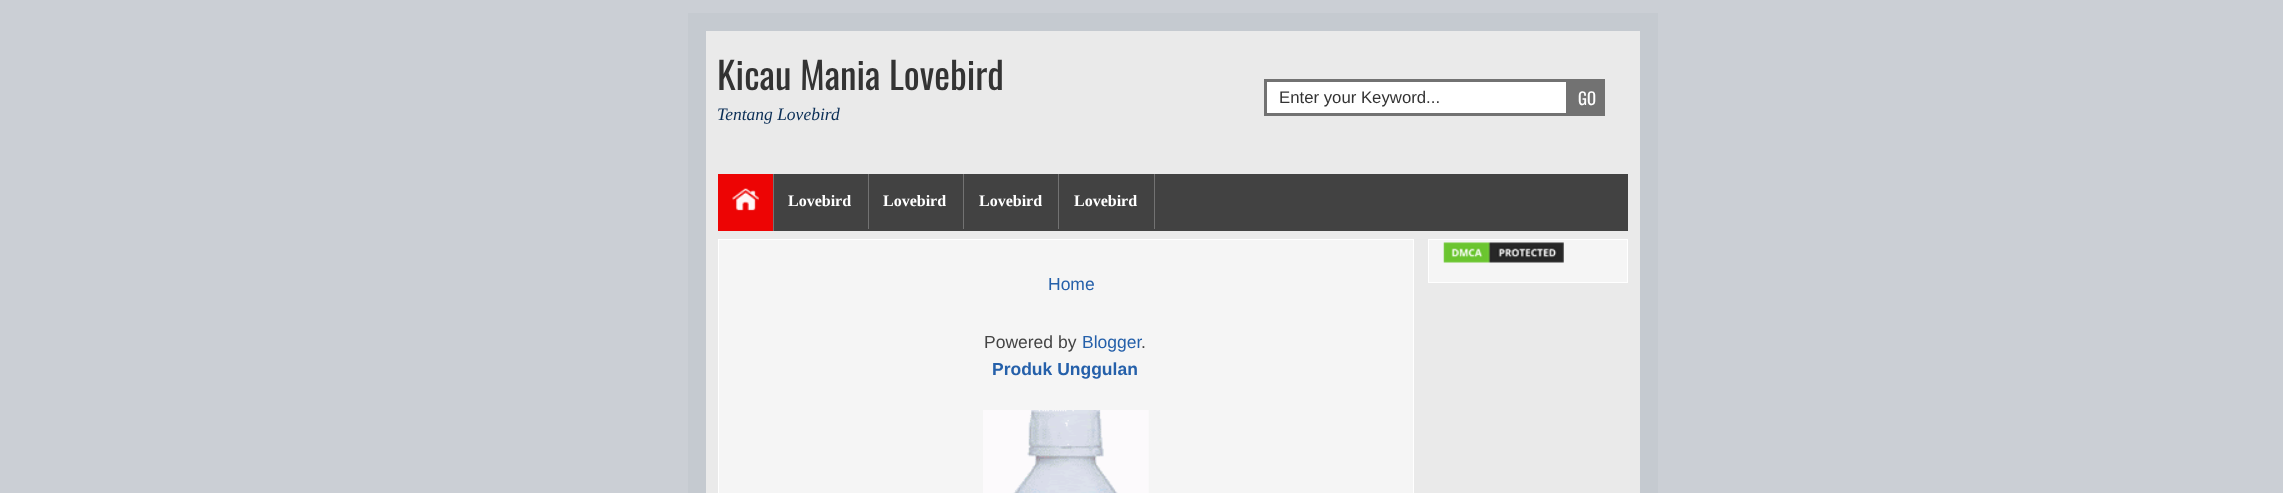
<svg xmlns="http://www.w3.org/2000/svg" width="2283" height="493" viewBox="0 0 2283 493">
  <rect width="100%" height="100%" fill="rgb(203,207,213)"/>
  <rect x="697" y="22" width="952" height="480" fill="rgb(234,234,234)" stroke="rgb(197,202,208)" stroke-width="18"/>
  <text x="717" y="90" font-family="Oswald" font-size="37.5" fill="rgb(51,51,51)">Kicau Mania Lovebird</text>
  <text x="717" y="120" font-family="Liberation Serif" font-size="17.5" font-style="italic" fill="rgb(10,46,86)">Tentang Lovebird</text>
  <rect x="1265.5" y="80.5" width="302" height="34" fill="rgb(255,255,255)" stroke="rgb(114,114,114)" stroke-width="3"/>
  <text x="1279" y="103" font-family="Liberation Sans" font-size="16.75" fill="rgb(51,51,51)">Enter your Keyword...</text>
  <rect x="1569" y="79" width="36" height="37" fill="rgb(114,114,114)"/>
  <text x="1578" y="105" font-family="Oswald" font-size="16.75" fill="rgb(255,255,255)">GO</text>
  <rect x="774" y="174" width="854" height="57" fill="rgb(66,66,66)"/>
  <rect x="718" y="174" width="55" height="57" fill="rgb(237,4,4)"/>
  <rect x="773" y="174" width="1" height="57" fill="rgb(114,114,114)"/>
  <image x="732" y="188" width="27" height="23" href="pic1.png"/>
  <rect x="868" y="174" width="1" height="55" fill="rgb(114,114,114)"/>
  <text x="788" y="206" font-family="Liberation Serif" font-size="16" font-weight="bold" fill="rgb(255,255,255)">Lovebird</text>
  <rect x="963" y="174" width="1" height="55" fill="rgb(114,114,114)"/>
  <text x="883" y="206" font-family="Liberation Serif" font-size="16" font-weight="bold" fill="rgb(255,255,255)">Lovebird</text>
  <rect x="1058" y="174" width="1" height="55" fill="rgb(114,114,114)"/>
  <text x="979" y="206" font-family="Liberation Serif" font-size="16" font-weight="bold" fill="rgb(255,255,255)">Lovebird</text>
  <rect x="1154" y="174" width="1" height="55" fill="rgb(114,114,114)"/>
  <text x="1074" y="206" font-family="Liberation Serif" font-size="16" font-weight="bold" fill="rgb(255,255,255)">Lovebird</text>
  <rect x="1428.5" y="239.5" width="199" height="43" fill="rgb(245,245,245)" stroke="rgb(255,255,255)"/>
  <image x="1443" y="242" width="121" height="21" href="pic2.png"/>
  <rect x="718.5" y="239.5" width="695" height="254" fill="rgb(245,245,245)" stroke="rgb(255,255,255)"/>
  <text x="1048" y="290" font-family="Liberation Sans" font-size="17.5" fill="rgb(37,96,170)">Home</text>
  <text x="984" y="348" font-family="Liberation Sans" font-size="17.5" fill="rgb(68,68,68)">Powered by</text>
  <text x="1082" y="348" font-family="Liberation Sans" font-size="17.5" fill="rgb(37,96,170)">Blogger</text>
  <text x="1141" y="348" font-family="Liberation Sans" font-size="17.5" fill="rgb(68,68,68)">.</text>
  <text x="992" y="375" font-family="Liberation Sans" font-size="17.5" font-weight="bold" fill="rgb(37,96,170)">Produk Unggulan</text>
  <image x="983" y="410" width="166" height="83" href="pic3.png"/>
</svg>
